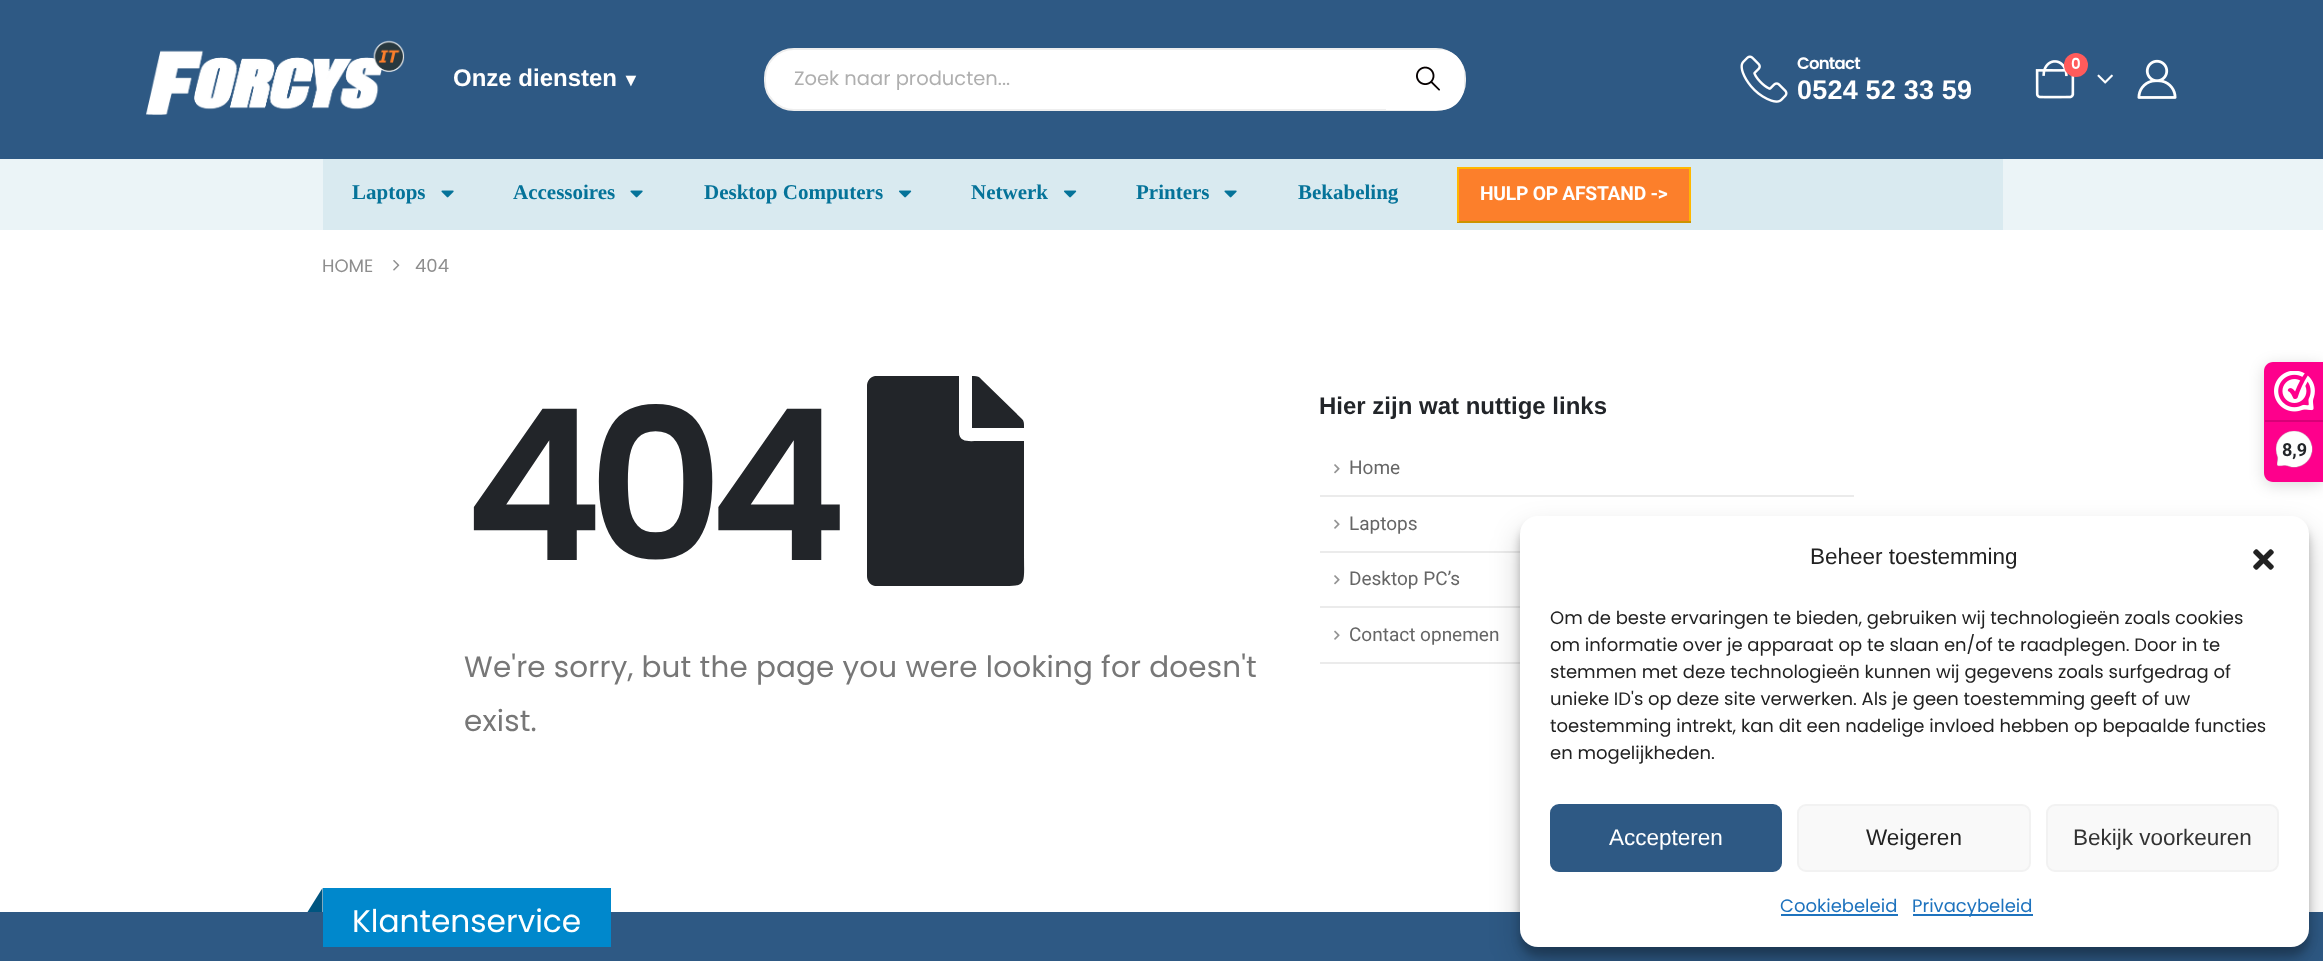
<svg xmlns="http://www.w3.org/2000/svg" width="2323" height="961" viewBox="0 0 2323 961">
  <rect width="100%" height="100%" fill="rgb(255,255,255)"/>
  <rect x="0" y="0" width="2323" height="159" fill="rgb(46,89,132)"/>
  <image x="146" y="40" width="259" height="75" href="pic1.png"/>
  <text x="453" y="86" font-family="Liberation Sans" font-size="24" font-weight="bold" fill="rgb(255,255,255)">Onze diensten</text>
  <text x="622" y="86" font-family="Liberation Sans" font-size="18" font-weight="bold" fill="rgb(255,255,255)">▼</text>
  <rect x="765" y="49" width="700" height="61" rx="29" fill="rgb(255,255,255)" stroke="rgb(238,238,238)" stroke-width="2"/>
  <text x="794" y="85" font-family="Poppins" font-size="19.5" fill="rgb(175,175,175)">Zoek naar producten...</text>
  <path d="M1386 50H1441C1453.5 50 1464 60.5 1464 73V87C1464 99.5 1453.5 110 1441 110H1386Z" fill="rgb(255,255,255)"/>
  <image x="1416" y="66" width="24" height="25" href="pic2.png"/>
  <image x="1740" y="55" width="48" height="48" href="pic3.png"/>
  <text x="1797" y="69" font-family="Poppins" font-size="16.5" font-weight="600" letter-spacing="-0.75" fill="rgb(255,255,255)">Contact</text>
  <text x="1797" y="99" font-family="Liberation Sans" font-size="27" font-weight="bold" letter-spacing="0.2" fill="rgb(255,255,255)">0524 52 33 59</text>
  <image x="2035" y="60" width="40" height="39" href="pic4.png"/>
  <circle cx="2076" cy="65" r="12" fill="rgb(255,91,91)"/>
  <text x="2071" y="69" font-family="Poppins" font-size="15" font-weight="600" fill="rgb(255,255,255)">0</text>
  <image x="2097" y="74" width="16" height="10" href="pic5.png"/>
  <image x="2137" y="59" width="40" height="40" href="pic6.png"/>
  <rect x="0" y="159" width="2323" height="71" fill="rgb(235,244,247)"/>
  <rect x="323" y="159" width="1680" height="71" fill="rgb(217,234,240)"/>
  <text x="352" y="199" font-family="Liberation Serif" font-size="21" font-weight="bold" fill="rgb(5,115,153)">Laptops</text>
  <image x="441" y="190" width="13" height="8" href="pic7.png"/>
  <text x="513" y="199" font-family="Liberation Serif" font-size="21" font-weight="bold" fill="rgb(5,115,153)">Accessoires</text>
  <image x="630" y="190" width="13" height="8" href="pic7.png"/>
  <text x="704" y="199" font-family="Liberation Serif" font-size="21" font-weight="bold" fill="rgb(5,115,153)">Desktop Computers</text>
  <image x="899" y="190" width="13" height="8" href="pic8.png"/>
  <text x="971" y="199" font-family="Liberation Serif" font-size="21" font-weight="bold" fill="rgb(5,115,153)">Netwerk</text>
  <image x="1064" y="190" width="13" height="8" href="pic8.png"/>
  <text x="1136" y="199" font-family="Liberation Serif" font-size="21" font-weight="bold" fill="rgb(5,115,153)">Printers</text>
  <image x="1224" y="190" width="13" height="8" href="pic7.png"/>
  <text x="1298" y="199" font-family="Liberation Serif" font-size="21" font-weight="bold" fill="rgb(5,115,153)">Bekabeling</text>
  <rect x="1459" y="169" width="230" height="52" fill="rgb(252,127,43)"/>
  <rect x="1457" y="167" width="234" height="2" fill="rgb(255,183,0)"/>
  <rect x="1689" y="167" width="2" height="55" fill="rgb(255,183,0)"/>
  <rect x="1457" y="221" width="234" height="2" fill="rgb(204,147,0)"/>
  <rect x="1457" y="167" width="2" height="55" fill="rgb(255,183,0)"/>
  <text x="1480" y="200" font-family="Roboto" font-size="19.25" font-weight="bold" letter-spacing="-0.25" fill="rgb(255,255,255)">HULP OP AFSTAND -&gt;</text>
  <text x="322" y="272" font-family="Poppins" font-size="18" fill="rgb(142,142,142)">HOME</text>
  <image x="393" y="260" width="7" height="11" href="pic9.png"/>
  <text x="415" y="272" font-family="Poppins" font-size="18" fill="rgb(142,142,142)">404</text>
  <text x="464" y="560" font-family="Poppins" font-size="210" font-weight="600" letter-spacing="-15" fill="rgb(34,37,41)">404</text>
  <path d="M959 432C959 443 970 441 978 441H1024V553C1024 589 1028 586 992 586H875C870 585 867 581 867 576V386C867 381 870 377 875 376H959ZM1024 426V428H972V376H974C977 376 980 377 981 379L1022 419C1024 421 1024 423 1024 426Z" fill="rgb(34,37,41)"/>
  <g font-family="Poppins" font-size="29.4" letter-spacing="0.2" fill="rgb(119,119,119)">
    <text>
      <tspan x="464" y="677">We're sorry, but the page you were looking for doesn't</tspan>
      <tspan x="464" y="731">exist.</tspan>
    </text>
  </g>
  <text x="1319" y="414" font-family="Liberation Sans" font-size="24" font-weight="bold" fill="rgb(34,37,41)">Hier zijn wat nuttige links</text>
  <rect x="1320" y="495" width="534" height="2" fill="rgb(235,235,235)"/>
  <image x="1334" y="464" width="6" height="10" href="pic10.png"/>
  <text x="1349" y="474" font-family="Roboto" font-size="19" fill="rgb(102,102,102)">Home</text>
  <rect x="1320" y="551" width="200" height="2" fill="rgb(235,235,235)"/>
  <image x="1334" y="519" width="6" height="10" href="pic11.png"/>
  <text x="1349" y="530" font-family="Roboto" font-size="19" fill="rgb(102,102,102)">Laptops</text>
  <rect x="1320" y="606" width="200" height="2" fill="rgb(235,235,235)"/>
  <image x="1334" y="575" width="6" height="10" href="pic10.png"/>
  <text x="1349" y="585" font-family="Roboto" font-size="19" fill="rgb(102,102,102)">Desktop PC’s</text>
  <rect x="1320" y="662" width="200" height="2" fill="rgb(235,235,235)"/>
  <image x="1334" y="630" width="6" height="10" href="pic11.png"/>
  <text x="1349" y="641" font-family="Roboto" font-size="19" fill="rgb(102,102,102)">Contact opnemen</text>
  <rect x="0" y="912" width="2323" height="49" fill="rgb(46,89,132)"/>
  <rect x="323" y="888" width="288" height="59" fill="rgb(0,136,204)"/>
  <path d="M322.5 888V912H307.5Z" fill="rgb(0,85,128)"/>
  <text x="352" y="932" font-family="Poppins" font-size="31.25" fill="rgb(255,255,255)">Klantenservice</text>
  <rect x="2264" y="365" width="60" height="120" rx="9" fill="rgba(0,0,0,0.15)" filter="blur(7.5px)"/>
  <path d="M2273 362H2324V482H2273C2268 482 2264 478 2264 473V371C2264 366 2268 362 2273 362Z" fill="rgb(254,0,140)"/>
  <image x="2274" y="371" width="41" height="41" href="pic12.png"/>
  <rect x="2265" y="420" width="58" height="2" fill="rgb(216,0,119)"/>
  <image x="2275" y="430" width="38" height="38" href="pic13.png"/>
  <text x="2282" y="456" font-family="Roboto" font-size="18" font-weight="bold" fill="rgb(34,37,41)">8,9</text>
  <rect x="1520" y="525" width="789" height="431" rx="18" fill="rgba(0,0,0,0.23)" filter="blur(4.5px)"/>
  <rect x="1520" y="531" width="789" height="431" rx="18" fill="rgba(0,0,0,0.19)" filter="blur(15px)"/>
  <rect x="1520" y="516" width="789" height="431" rx="18" fill="rgb(255,255,255)"/>
  <text x="1810" y="564" font-family="Liberation Sans" font-size="22.5" fill="rgb(34,34,34)">Beheer toestemming</text>
  <image x="2253" y="549" width="21" height="21" href="pic14.png"/>
  <g font-family="Poppins" font-size="18" fill="rgb(34,34,34)">
    <text>
      <tspan x="1550" y="624">Om de beste ervaringen te bieden, gebruiken wij technologieën zoals cookies</tspan>
      <tspan x="1550" y="651">om informatie over je apparaat op te slaan en/of te raadplegen. Door in te</tspan>
      <tspan x="1550" y="678">stemmen met deze technologieën kunnen wij gegevens zoals surfgedrag of</tspan>
      <tspan x="1550" y="705">unieke ID's op deze site verwerken. Als je geen toestemming geeft of uw</tspan>
      <tspan x="1550" y="732">toestemming intrekt, kan dit een nadelige invloed hebben op bepaalde functies</tspan>
      <tspan x="1550" y="759">en mogelijkheden.</tspan>
    </text>
  </g>
  <rect x="1551" y="805" width="230" height="66" rx="8" fill="rgb(46,89,132)" stroke="rgb(46,89,132)" stroke-width="2"/>
  <text x="1609" y="845" font-family="Liberation Sans" font-size="22.5" fill="rgb(255,255,255)">Accepteren</text>
  <rect x="1798" y="805" width="232" height="66" rx="8" fill="rgb(249,249,249)" stroke="rgb(242,242,242)" stroke-width="2"/>
  <text x="1866" y="845" font-family="Liberation Sans" font-size="22.5" fill="rgb(34,34,34)">Weigeren</text>
  <rect x="2047" y="805" width="231" height="66" rx="8" fill="rgb(249,249,249)" stroke="rgb(242,242,242)" stroke-width="2"/>
  <text x="2073" y="845" font-family="Liberation Sans" font-size="22.5" fill="rgb(51,51,51)">Bekijk voorkeuren</text>
  <text x="1780" y="912" font-family="Poppins" font-size="18" fill="rgb(30,115,190)">Cookiebeleid</text>
  <rect x="1781" y="914" width="117" height="2" fill="rgb(30,115,190)"/>
  <rect x="1913" y="914" width="120" height="2" fill="rgb(30,115,190)"/>
  <text x="1912" y="912" font-family="Poppins" font-size="18" fill="rgb(30,115,190)">Privacybeleid</text>
</svg>
